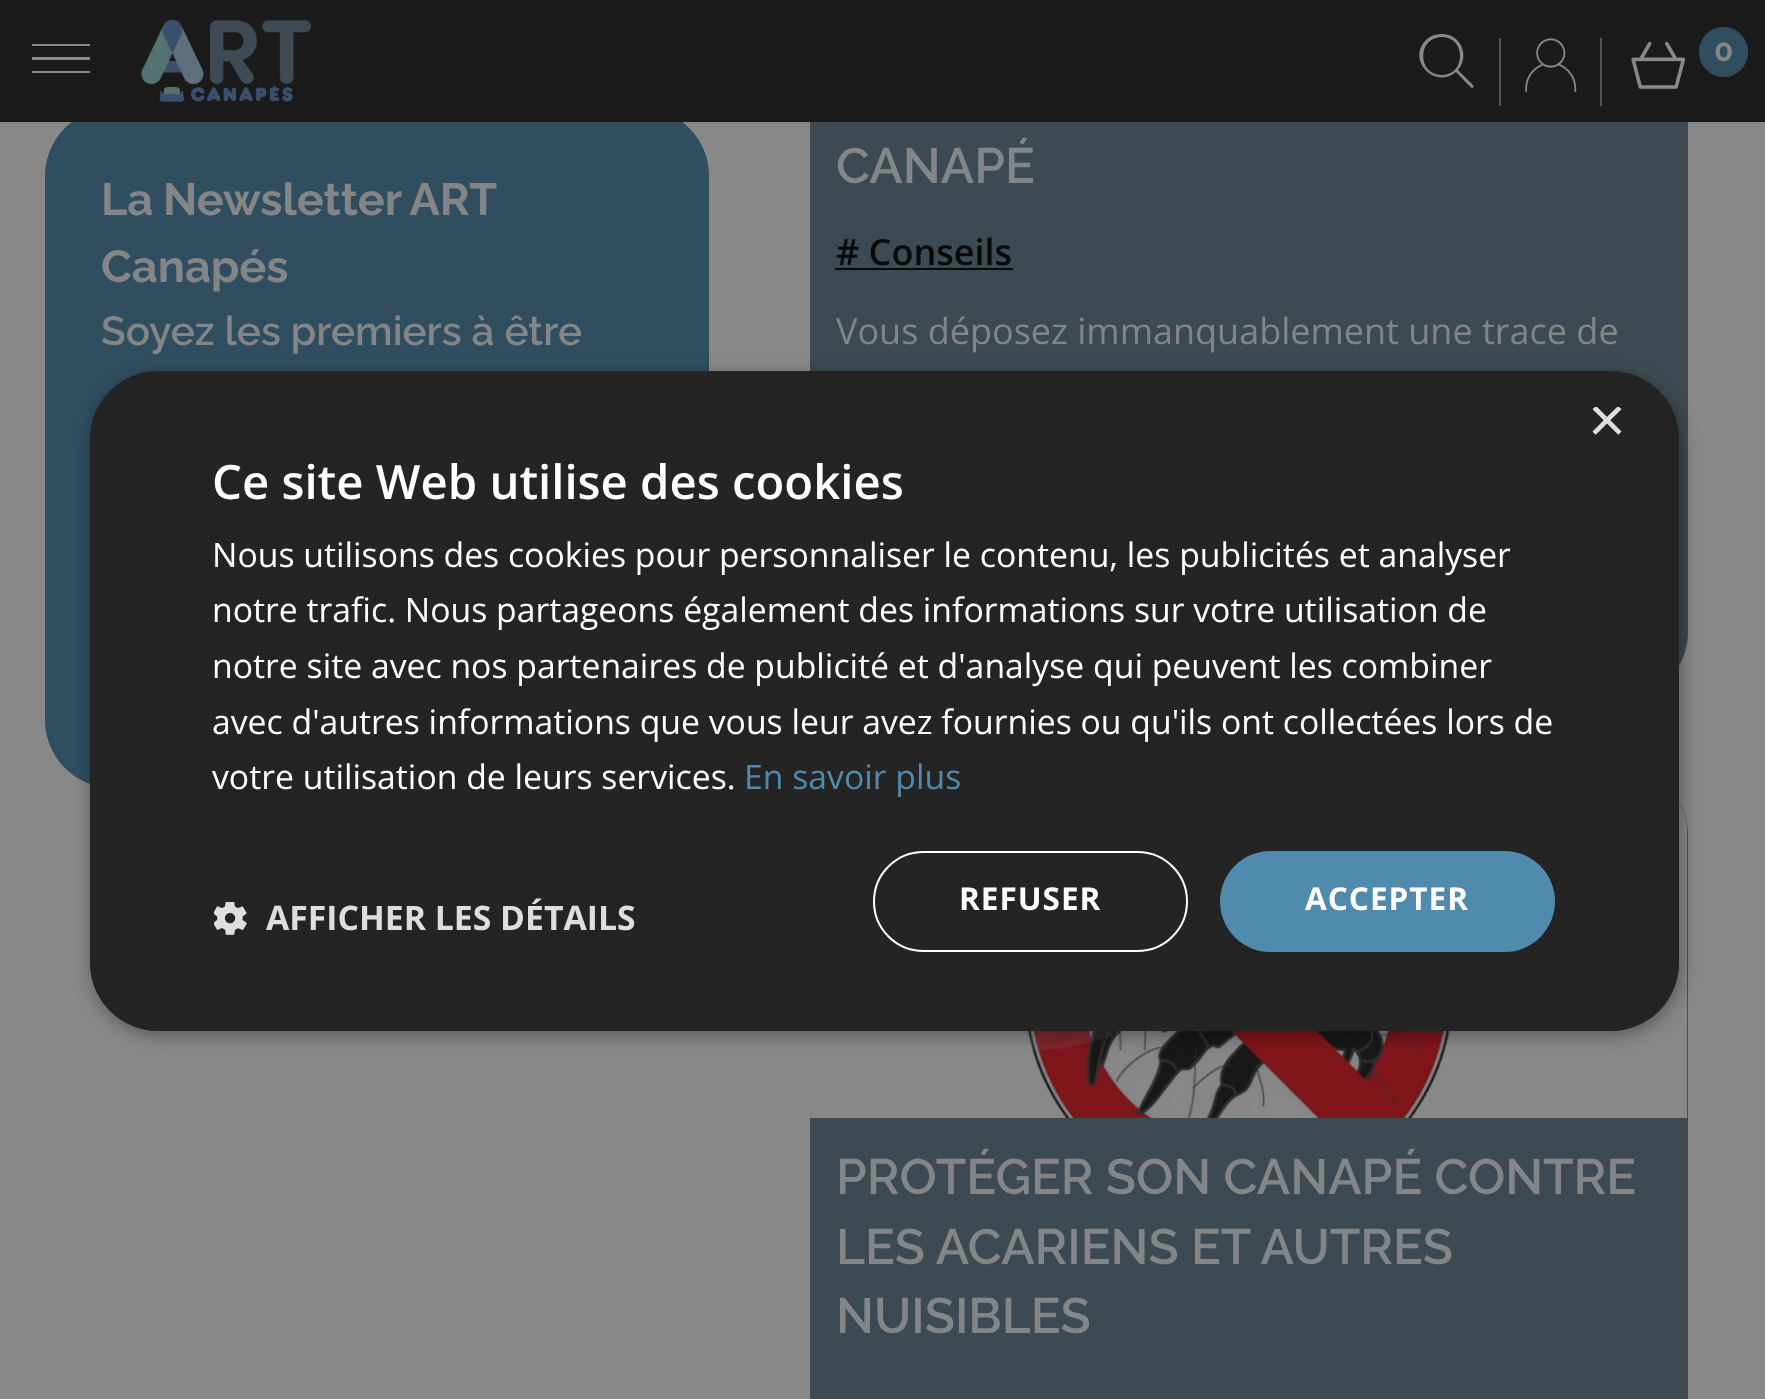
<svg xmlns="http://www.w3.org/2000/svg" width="1765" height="1399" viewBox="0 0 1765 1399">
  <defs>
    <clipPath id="clip1"><rect x="1589" y="407" width="33" height="34"/></clipPath>
  </defs>
  <rect width="100%" height="100%" fill="rgb(136,136,136)"/>
  <rect x="45" y="108" width="664" height="680" rx="68" fill="rgb(48,78,95)"/>
  <rect x="810" y="-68" width="878" height="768" rx="68" fill="rgb(62,74,82)"/>
  <rect x="0" y="0" width="1765" height="122" fill="rgb(27,27,27)"/>
  <path d="M32 46H90V44H32ZM32 60H90V57H32ZM32 73H90V71H32Z" fill="rgb(136,136,136)"/>
  <image x="141" y="19" width="170" height="83" href="pic1.png"/>
  <path d="M1442 34C1461 34 1470 56 1458 70L1468 80C1472 84 1476 87 1472 88C1471 88 1458 74 1456 72C1435 90 1406 60 1426 40C1430 36 1436 34 1442 34ZM1442 37C1417 37 1417 75 1442 75C1466 75 1466 37 1442 37Z" fill="rgb(136,136,136)"/>
  <rect x="1600" y="38" width="2" height="68" fill="rgb(85,85,85)"/>
  <rect x="1499" y="38" width="2" height="68" fill="rgb(85,85,85)"/>
  <image x="1525" y="38" width="52" height="55" href="pic2.png"/>
  <image x="1631" y="41" width="55" height="48" href="pic3.png"/>
  <rect x="1699" y="27" width="49" height="50" rx="24.5" fill="rgb(49,78,95)"/>
  <text x="1714" y="61" font-family="Raleway" font-size="31.5" font-weight="bold" fill="rgb(132,133,134)">0</text>
  <g font-family="Raleway" font-size="45" font-weight="bold" fill="rgb(132,133,134)">
    <text>
      <tspan x="101" y="215" word-spacing="-1">La Newsletter ART</tspan>
      <tspan x="101" y="282">Canapés</tspan>
    </text>
  </g>
  <text x="101" y="345" font-family="Raleway" font-size="40.5" font-weight="600" fill="rgb(132,133,134)">Soyez les premiers à être</text>
  <text x="836" y="183" font-family="Raleway" font-size="49.5" font-weight="600" fill="rgb(132,133,134)">CANAPÉ</text>
  <text x="836" y="265" font-family="Open Sans" font-size="36" font-weight="600" fill="rgb(9,9,9)"># Conseils</text>
  <rect x="835" y="268" width="178" height="2" fill="rgb(9,9,9)"/>
  <text x="836" y="344" font-family="Open Sans" font-size="36" fill="rgb(132,133,134)">Vous déposez immanquablement une trace de</text>
  <rect x="810" y="767" width="878" height="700" rx="68" fill="rgb(62,74,82)"/>
  <image x="810" y="802" width="878" height="316" href="pic4.png"/>
  <g font-family="Raleway" font-size="49.5" font-weight="600" fill="rgb(132,133,134)">
    <text>
      <tspan x="836" y="1194">PROTÉGER SON CANAPÉ CONTRE</tspan>
      <tspan x="836" y="1264">LES ACARIENS ET AUTRES</tspan>
      <tspan x="836" y="1333">NUISIBLES</tspan>
    </text>
  </g>
  <rect x="92" y="376" width="1589" height="659" rx="68" fill="rgba(0,0,0,0.35)" filter="blur(9px)"/>
  <rect x="90" y="371" width="1589" height="660" rx="68" fill="rgb(36,36,36)"/>
  <g clip-path="url(#clip1)">
    <text x="1588" y="442" font-family="Liberation Sans" font-size="65" fill="rgb(222,222,222)">×</text>
  </g>
  <text x="212" y="499" font-family="Open Sans" font-size="47.25" font-weight="600" fill="rgb(255,255,255)">Ce site Web utilise des cookies</text>
  <g font-family="Open Sans" font-size="33.75" fill="rgb(255,255,255)">
    <text>
      <tspan x="212" y="567">Nous utilisons des cookies pour personnaliser le contenu, les publicités et analyser</tspan>
      <tspan x="212" y="622">notre trafic. Nous partageons également des informations sur votre utilisation de</tspan>
      <tspan x="212" y="678">notre site avec nos partenaires de publicité et d'analyse qui peuvent les combiner</tspan>
      <tspan x="212" y="734">avec d'autres informations que vous leur avez fournies ou qu'ils ont collectées lors de</tspan>
      <tspan x="212" y="789">votre utilisation de leurs services.</tspan>
    </text>
  </g>
  <text x="744" y="789" font-family="Open Sans" font-size="33.75" fill="rgb(80,138,173)">En savoir plus</text>
  <image x="214" y="902" width="33" height="33" href="pic5.png"/>
  <text x="266" y="930" font-family="Open Sans" font-size="33.75" font-weight="bold" fill="rgb(222,222,222)">AFFICHER LES DÉTAILS</text>
  <rect x="874" y="852" width="313" height="99" rx="49.5" fill="none" stroke="rgb(255,255,255)" stroke-width="2"/>
  <text x="959" y="910" font-family="Open Sans" font-size="31.5" font-weight="bold" letter-spacing="1" fill="rgb(255,255,255)">REFUSER</text>
  <rect x="1220" y="851" width="335" height="101" rx="50.5" fill="rgb(80,138,173)"/>
  <text x="1305" y="910" font-family="Open Sans" font-size="31.5" font-weight="bold" letter-spacing="1" fill="rgb(255,255,255)">ACCEPTER</text>
</svg>
